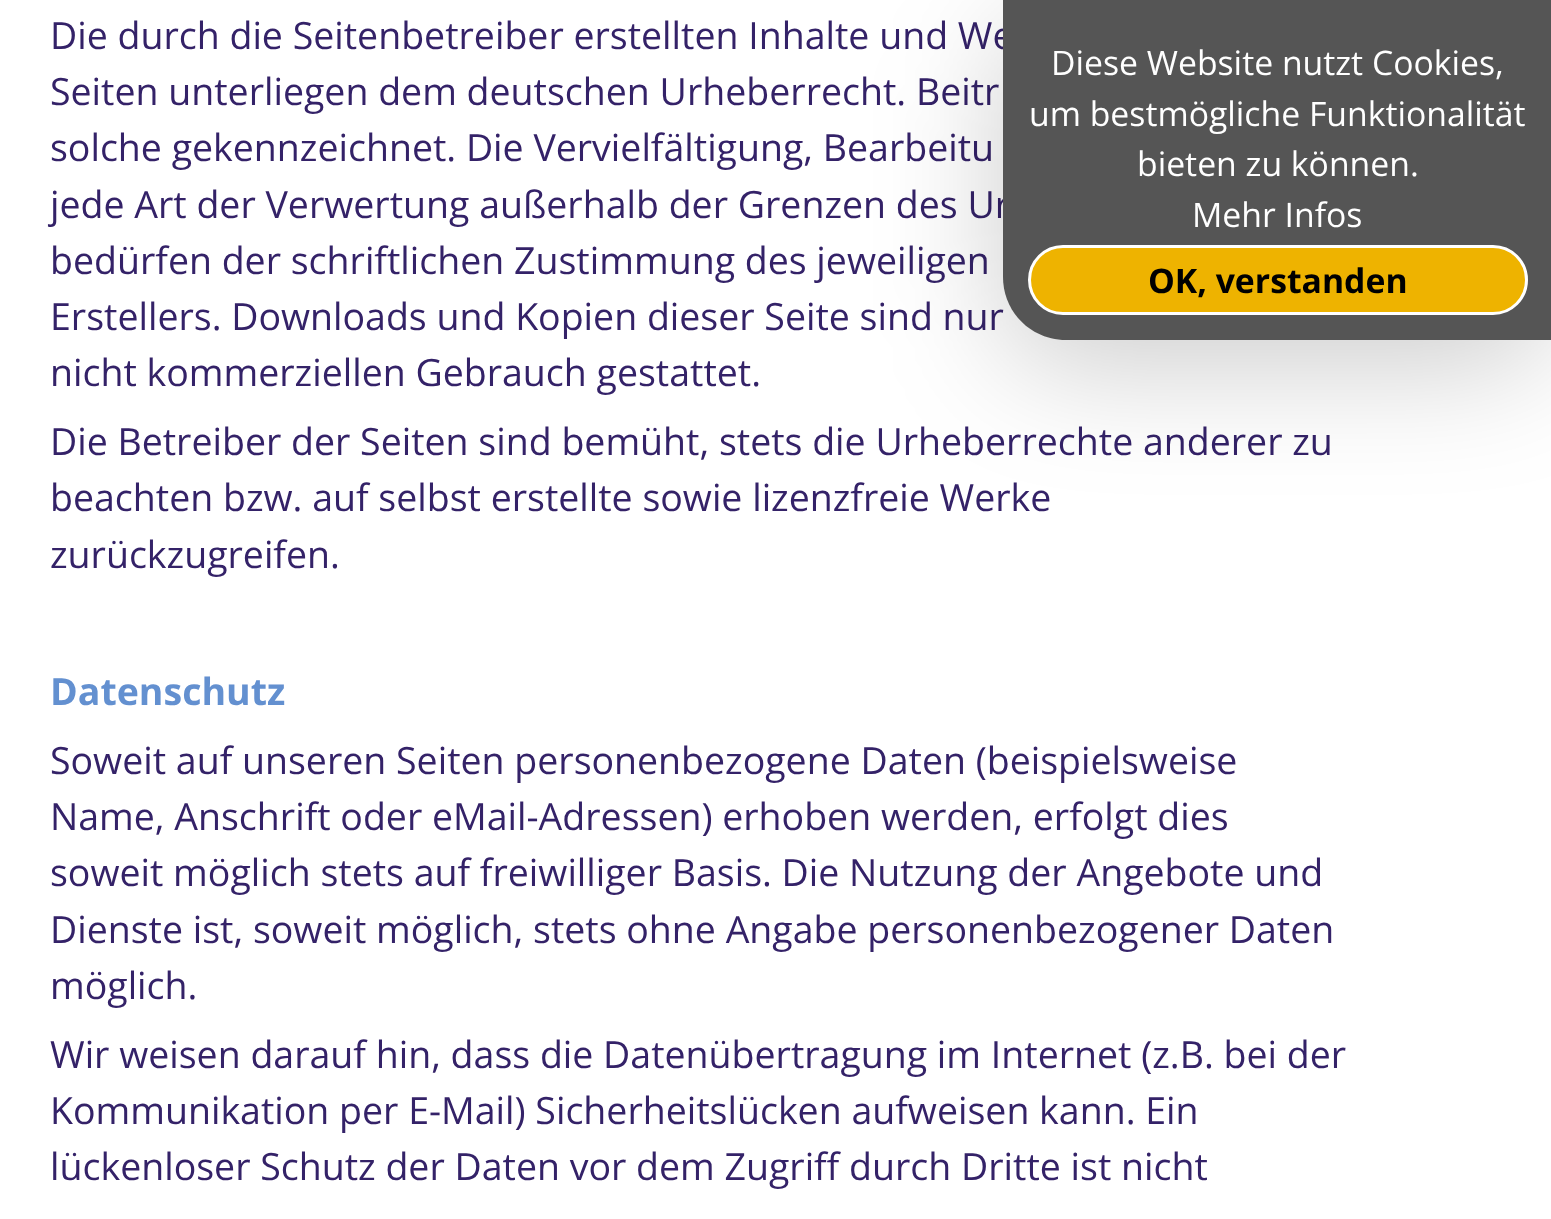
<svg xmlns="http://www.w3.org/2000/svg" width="1551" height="1219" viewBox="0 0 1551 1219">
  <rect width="100%" height="100%" fill="rgb(255,255,255)"/>
  <g font-family="Open Sans" font-size="37.5" fill="rgb(52,34,104)">
    <text>
      <tspan x="50" y="49">Die durch die Seitenbetreiber erstellten Inhalte und We</tspan>
      <tspan x="50" y="105">Seiten unterliegen dem deutschen Urheberrecht. Beitr</tspan>
      <tspan x="50" y="161">solche gekennzeichnet. Die Vervielfältigung, Bearbeitu</tspan>
      <tspan x="50" y="218">jede Art der Verwertung außerhalb der Grenzen des Ur</tspan>
      <tspan x="50" y="274">bedürfen der schriftlichen Zustimmung des jeweiligen</tspan>
      <tspan x="50" y="330">Erstellers. Downloads und Kopien dieser Seite sind nur</tspan>
      <tspan x="50" y="386">nicht kommerziellen Gebrauch gestattet.</tspan>
      <tspan x="50" y="455">Die Betreiber der Seiten sind bemüht, stets die Urheberrechte anderer zu</tspan>
      <tspan x="50" y="511">beachten bzw. auf selbst erstellte sowie lizenzfreie Werke</tspan>
      <tspan x="50" y="568">zurückzugreifen.</tspan>
    </text>
  </g>
  <text x="50" y="705" font-family="Open Sans" font-size="37.5" font-weight="bold" fill="rgb(99,144,208)">Datenschutz</text>
  <g font-family="Open Sans" font-size="37.5" fill="rgb(52,34,104)">
    <text>
      <tspan x="50" y="774">Soweit auf unseren Seiten personenbezogene Daten (beispielsweise</tspan>
      <tspan x="50" y="830">Name, Anschrift oder eMail-Adressen) erhoben werden, erfolgt dies</tspan>
      <tspan x="50" y="886">soweit möglich stets auf freiwilliger Basis. Die Nutzung der Angebote und</tspan>
      <tspan x="50" y="943">Dienste ist, soweit möglich, stets ohne Angabe personenbezogener Daten</tspan>
      <tspan x="50" y="999">möglich.</tspan>
      <tspan x="50" y="1068">Wir weisen darauf hin, dass die Datenübertragung im Internet (z.B. bei der</tspan>
      <tspan x="50" y="1124">Kommunikation per E-Mail) Sicherheitslücken aufweisen kann. Ein</tspan>
      <tspan x="50" y="1180">lückenloser Schutz der Daten vor dem Zugriff durch Dritte ist nicht</tspan>
    </text>
  </g>
  <rect x="1003" y="25" width="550" height="340" rx="63" fill="rgba(0,0,0,0.2)" filter="blur(62.5px)"/>
  <path d="M1003 0H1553V340H1066C1031 340 1003 312 1003 277Z" fill="rgb(85,85,85)"/>
  <g font-family="Open Sans" font-size="33.75" fill="rgb(255,255,255)">
    <text x="1051" y="75">Diese Website nutzt Cookies,</text>
    <text x="1029" y="126">um bestmögliche Funktionalität</text>
    <text x="1137" y="176">bieten zu können.</text>
    <text x="1192" y="227">Mehr Infos</text>
  </g>
  <rect x="1029.5" y="246.5" width="497" height="67" rx="33.5" fill="rgb(238,179,0)" stroke="rgb(255,255,255)" stroke-width="3"/>
  <text x="1148" y="293" font-family="Open Sans" font-size="33.75" font-weight="bold" fill="rgb(0,0,0)">OK, verstanden</text>
</svg>
